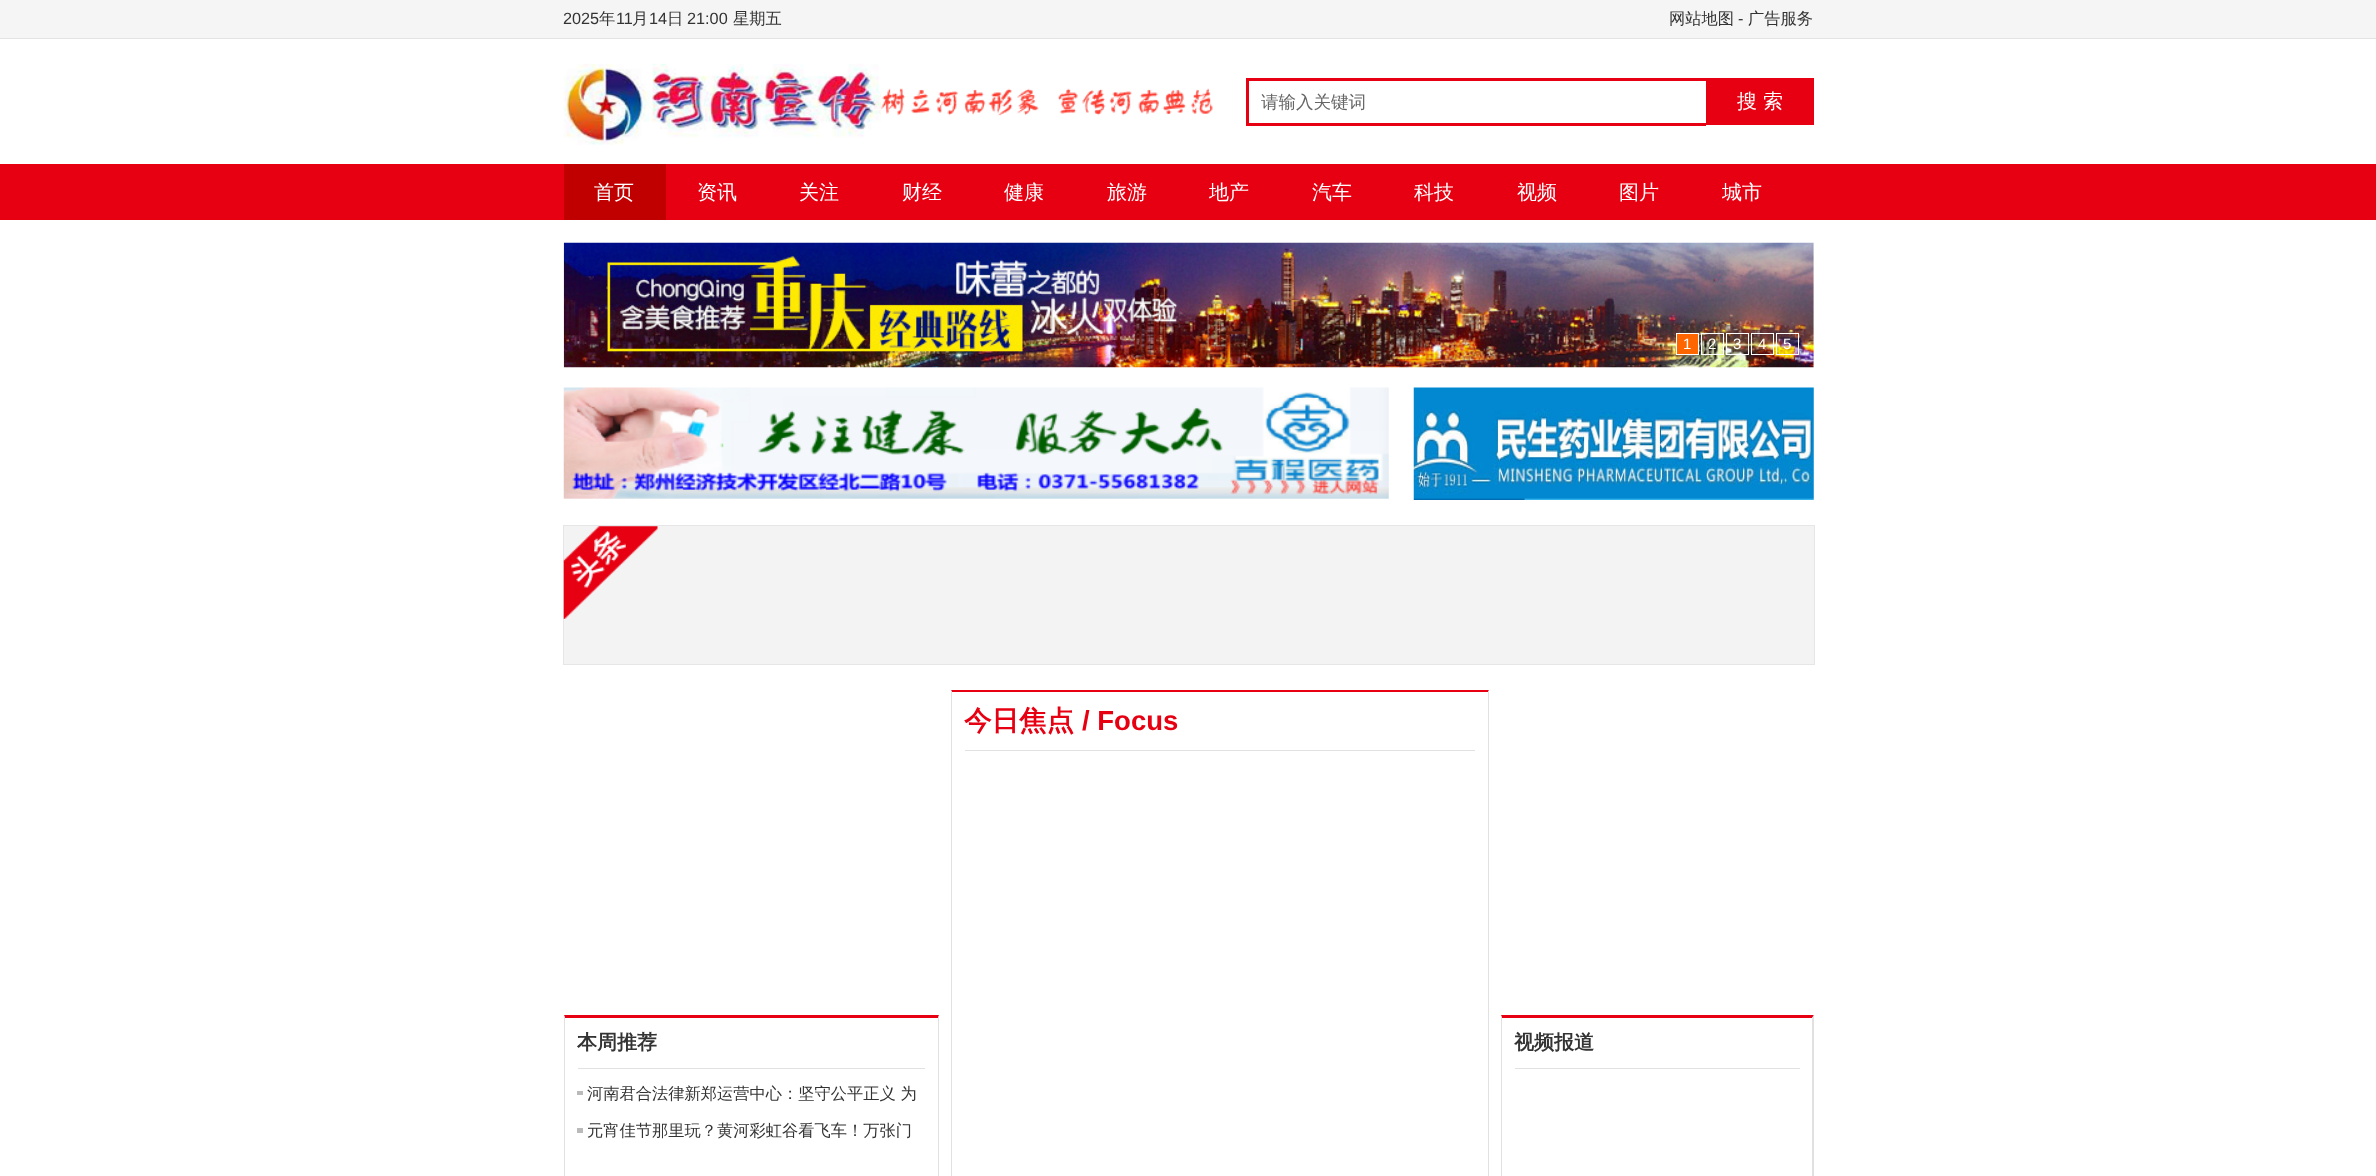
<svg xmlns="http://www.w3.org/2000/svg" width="2376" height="1176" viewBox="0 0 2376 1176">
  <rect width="100%" height="100%" fill="rgb(255,255,255)"/>
  <rect x="0" y="0" width="2376" height="38" fill="rgb(245,245,245)"/>
  <rect x="0" y="38" width="2376" height="1" fill="rgb(227,227,227)"/>
  <text x="563" y="24" font-family="Liberation Sans" font-size="16.25" fill="rgb(51,51,51)">2025</text>
  <text x="599" y="24" font-family="WenQuanYi Zen Hei" font-size="16.25" font-weight="500" fill="rgb(51,51,51)">年</text>
  <text x="616" y="24" font-family="Liberation Sans" font-size="16.25" fill="rgb(51,51,51)">11</text>
  <text x="632" y="24" font-family="WenQuanYi Zen Hei" font-size="16.25" font-weight="500" fill="rgb(51,51,51)">月</text>
  <text x="649" y="24" font-family="Liberation Sans" font-size="16.25" fill="rgb(51,51,51)">14</text>
  <text x="667" y="24" font-family="WenQuanYi Zen Hei" font-size="16.25" font-weight="500" fill="rgb(51,51,51)">日</text>
  <text x="687" y="24" font-family="Liberation Sans" font-size="16.25" fill="rgb(51,51,51)">21:00</text>
  <g font-family="WenQuanYi Zen Hei" font-size="16.25" font-weight="500" fill="rgb(51,51,51)">
    <text x="733" y="24">星期五</text>
    <text x="1669" y="24">网站地图</text>
  </g>
  <text x="1738" y="24" font-family="Liberation Sans" font-size="16.25" fill="rgb(51,51,51)">-</text>
  <text x="1748" y="24" font-family="WenQuanYi Zen Hei" font-size="16.25" font-weight="500" fill="rgb(51,51,51)">广告服务</text>
  <image x="563" y="63" width="650" height="82" href="pic1.png"/>
  <rect x="1246" y="78" width="460" height="3" fill="rgb(230,0,18)"/>
  <rect x="1246" y="123" width="460" height="3" fill="rgb(230,0,18)"/>
  <rect x="1246" y="78" width="3" height="47" fill="rgb(230,0,18)"/>
  <text x="1261" y="108" font-family="WenQuanYi Zen Hei" font-size="17.5" font-weight="500" fill="rgb(102,102,102)">请输入关键词</text>
  <rect x="1706" y="78" width="108" height="47" fill="rgb(230,0,18)"/>
  <text x="1737" y="108" font-family="WenQuanYi Zen Hei" font-size="20" font-weight="500" fill="rgb(255,255,255)">搜 索</text>
  <rect x="0" y="164" width="2376" height="56" fill="rgb(230,0,18)"/>
  <rect x="564" y="164" width="102" height="56" fill="rgb(192,0,0)"/>
  <g font-family="WenQuanYi Zen Hei" font-size="20" font-weight="500" fill="rgb(255,255,255)">
    <text x="594" y="199">首页</text>
    <text x="697" y="199">资讯</text>
    <text x="799" y="199">关注</text>
    <text x="902" y="199">财经</text>
    <text x="1004" y="199">健康</text>
    <text x="1107" y="199">旅游</text>
    <text x="1209" y="199">地产</text>
    <text x="1312" y="199">汽车</text>
    <text x="1414" y="199">科技</text>
    <text x="1517" y="199">视频</text>
    <text x="1619" y="199">图片</text>
    <text x="1722" y="199">城市</text>
  </g>
  <image x="563" y="242" width="1251" height="126" href="pic2.png"/>
  <rect x="1676.5" y="333.5" width="22" height="21" fill="rgb(255,102,0)" stroke="rgb(255,255,255)"/>
  <text x="1683" y="349" font-family="Liberation Sans" font-size="15" fill="rgb(255,255,255)">1</text>
  <rect x="1701.5" y="333.5" width="22" height="21" fill="none" stroke="rgb(255,255,255)"/>
  <text x="1708" y="349" font-family="Liberation Sans" font-size="15" fill="rgb(255,255,255)">2</text>
  <rect x="1726.5" y="333.5" width="22" height="21" fill="none" stroke="rgb(255,255,255)"/>
  <text x="1733" y="349" font-family="Liberation Sans" font-size="15" fill="rgb(255,255,255)">3</text>
  <rect x="1751.5" y="333.5" width="22" height="21" fill="none" stroke="rgb(255,255,255)"/>
  <text x="1758" y="349" font-family="Liberation Sans" font-size="15" fill="rgb(255,255,255)">4</text>
  <rect x="1776.5" y="333.5" width="22" height="21" fill="none" stroke="rgb(255,255,255)"/>
  <text x="1783" y="349" font-family="Liberation Sans" font-size="15" fill="rgb(255,255,255)">5</text>
  <image x="563" y="387" width="826" height="112" href="pic3.png"/>
  <image x="1413" y="387" width="401" height="113" href="pic4.png"/>
  <rect x="563.5" y="525.5" width="1251" height="139" fill="rgb(243,243,243)" stroke="rgb(230,230,230)"/>
  <image x="563" y="526" width="95" height="93" href="pic5.png"/>
  <path d="M951 690H1489L1488 692H952Z" fill="rgb(230,0,18)"/>
  <path d="M1489 690V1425L1488 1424V692Z" fill="rgb(225,225,225)"/>
  <path d="M951 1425V690L952 692V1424Z" fill="rgb(225,225,225)"/>
  <rect x="965" y="750" width="510" height="1" fill="rgb(225,225,225)"/>
  <text x="964" y="730" font-family="WenQuanYi Zen Hei" font-size="27.5" font-weight="bold" fill="rgb(230,0,18)">今日焦点</text>
  <text x="1082" y="730" font-family="Liberation Sans" font-size="27.5" font-weight="bold" fill="rgb(230,0,18)">/ Focus</text>
  <path d="M564 1015H939L938 1018H565Z" fill="rgb(230,0,18)"/>
  <path d="M939 1015V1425L938 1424V1018Z" fill="rgb(225,225,225)"/>
  <path d="M564 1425V1015L565 1018V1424Z" fill="rgb(225,225,225)"/>
  <rect x="578" y="1068" width="347" height="1" fill="rgb(225,225,225)"/>
  <text x="577" y="1049" font-family="WenQuanYi Zen Hei" font-size="20" font-weight="bold" fill="rgb(51,51,51)">本周推荐</text>
  <rect x="577" y="1091" width="6" height="4" fill="rgb(186,186,186)"/>
  <text x="587" y="1099" font-family="WenQuanYi Zen Hei" font-size="16.25" font-weight="500" fill="rgb(51,51,51)">河南君合法律新郑运营中心：坚守公平正义 为</text>
  <rect x="577" y="1128" width="6" height="5" fill="rgb(186,186,186)"/>
  <text x="587" y="1136" font-family="WenQuanYi Zen Hei" font-size="16.25" font-weight="500" fill="rgb(51,51,51)">元宵佳节那里玩？黄河彩虹谷看飞车！万张门</text>
  <path d="M1501 1015H1814L1812 1018H1502Z" fill="rgb(230,0,18)"/>
  <path d="M1814 1015V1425L1812 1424V1018Z" fill="rgb(225,225,225)"/>
  <path d="M1501 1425V1015L1502 1018V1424Z" fill="rgb(225,225,225)"/>
  <rect x="1515" y="1068" width="285" height="1" fill="rgb(225,225,225)"/>
  <text x="1514" y="1049" font-family="WenQuanYi Zen Hei" font-size="20" font-weight="bold" fill="rgb(51,51,51)">视频报道</text>
</svg>
